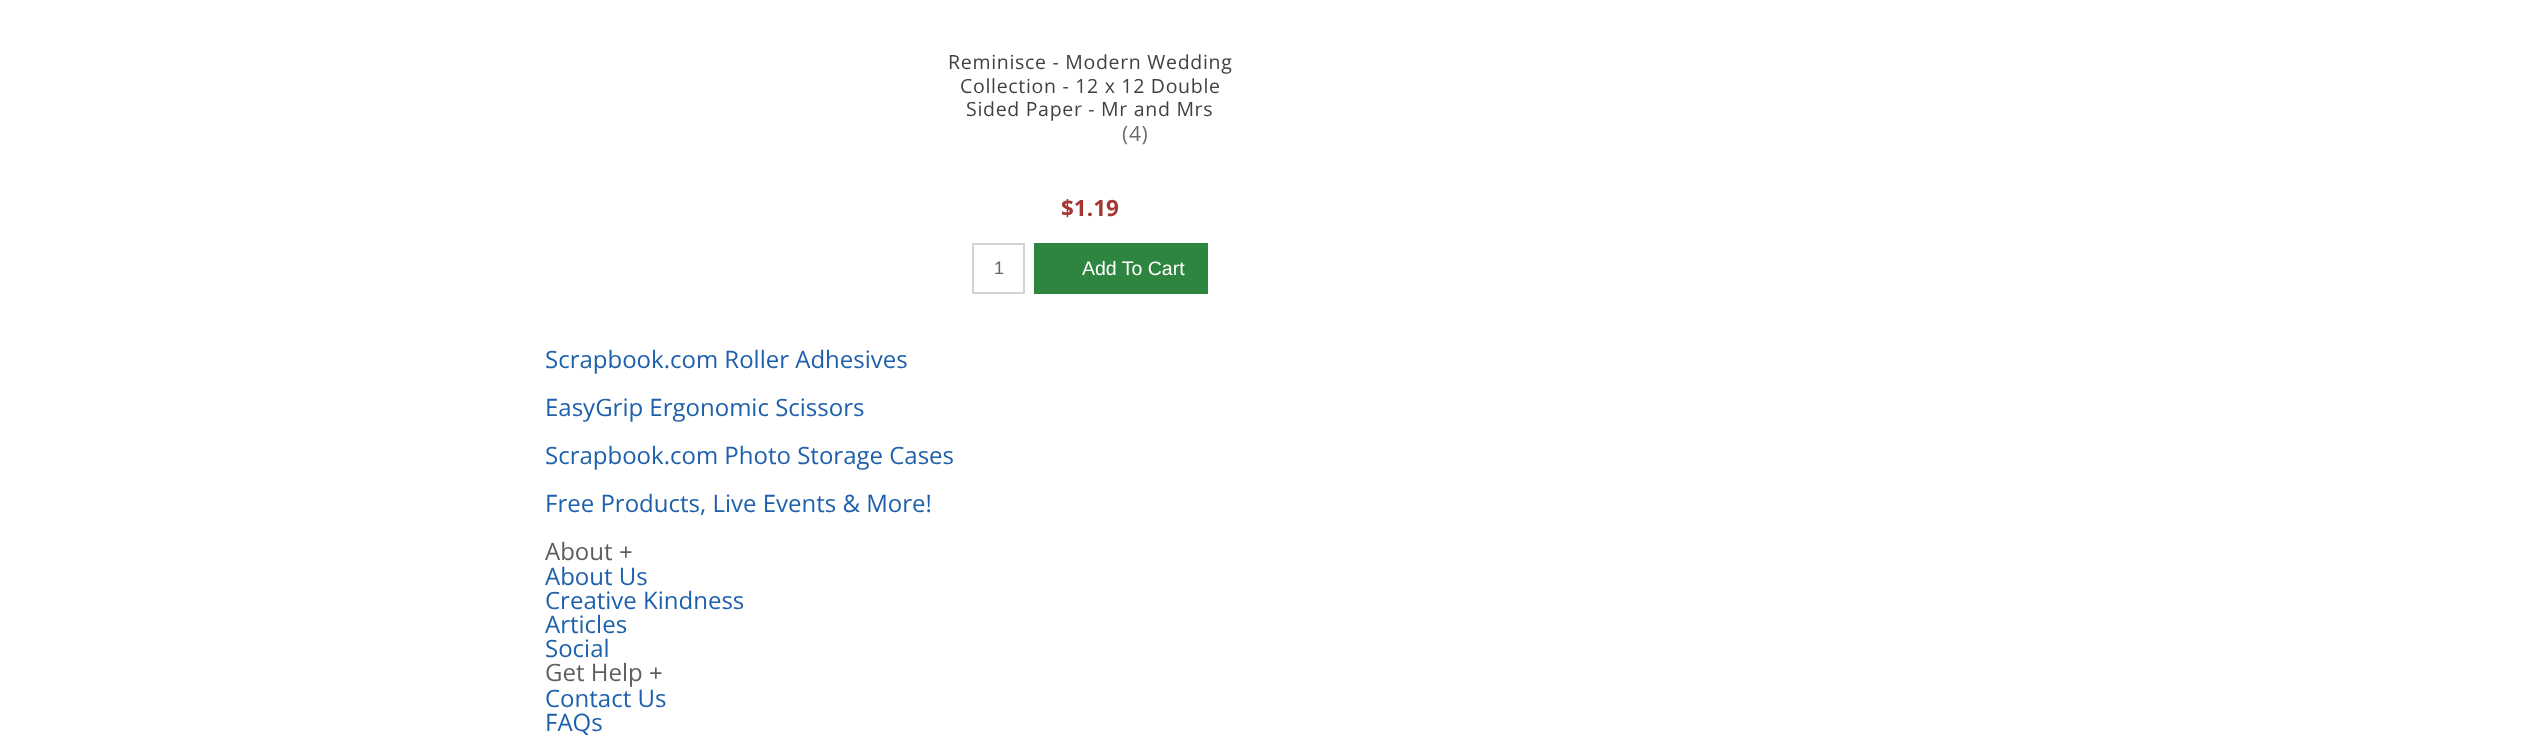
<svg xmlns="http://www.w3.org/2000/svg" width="2530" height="736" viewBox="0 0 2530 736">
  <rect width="100%" height="100%" fill="rgb(255,255,255)"/>
  <g font-family="Open Sans" font-size="19.5" letter-spacing="0.7" fill="rgb(65,65,65)">
    <text x="948" y="69">Reminisce - Modern Wedding</text>
    <text x="960" y="93">Collection - 12 x 12 Double</text>
    <text x="966" y="116">Sided Paper - Mr and Mrs</text>
  </g>
  <text x="1122" y="141" font-family="Open Sans" font-size="21" letter-spacing="0.7" fill="rgb(110,110,110)">(4)</text>
  <text x="1061" y="216" font-family="Open Sans" font-size="22.5" font-weight="bold" fill="rgb(166,54,52)">$1.19</text>
  <rect x="973" y="244" width="51" height="49" fill="none" stroke="rgb(211,211,211)" stroke-width="2"/>
  <text x="994" y="274" font-family="Liberation Sans" font-size="18" fill="rgb(104,104,104)">1</text>
  <rect x="1034" y="243" width="174" height="51" fill="rgb(46,133,63)"/>
  <text x="1082" y="275" font-family="Liberation Sans" font-size="19.5" fill="rgb(255,255,255)">Add To Cart</text>
  <g font-family="Open Sans" font-size="24" fill="rgb(30,96,171)">
    <text x="545" y="368">Scrapbook.com Roller Adhesives</text>
    <text x="545" y="416">EasyGrip Ergonomic Scissors</text>
    <text x="545" y="464">Scrapbook.com Photo Storage Cases</text>
    <text x="545" y="512">Free Products, Live Events &amp; More!</text>
  </g>
  <text x="545" y="560" font-family="Open Sans" font-size="24" fill="rgb(95,95,95)">About</text>
  <text x="619" y="560" font-family="Liberation Serif" font-size="24" font-weight="bold" fill="rgb(95,95,95)">+</text>
  <g font-family="Open Sans" font-size="24" fill="rgb(30,96,171)">
    <text>
      <tspan x="545" y="585">About Us</tspan>
      <tspan x="545" y="609">Creative Kindness</tspan>
      <tspan x="545" y="633">Articles</tspan>
      <tspan x="545" y="657">Social</tspan>
    </text>
  </g>
  <text x="545" y="681" font-family="Open Sans" font-size="24" fill="rgb(95,95,95)">Get Help</text>
  <text x="649" y="681" font-family="Liberation Serif" font-size="24" font-weight="bold" fill="rgb(95,95,95)">+</text>
  <g font-family="Open Sans" font-size="24" fill="rgb(30,96,171)">
    <text>
      <tspan x="545" y="707">Contact Us</tspan>
      <tspan x="545" y="731">FAQs</tspan>
    </text>
  </g>
</svg>
